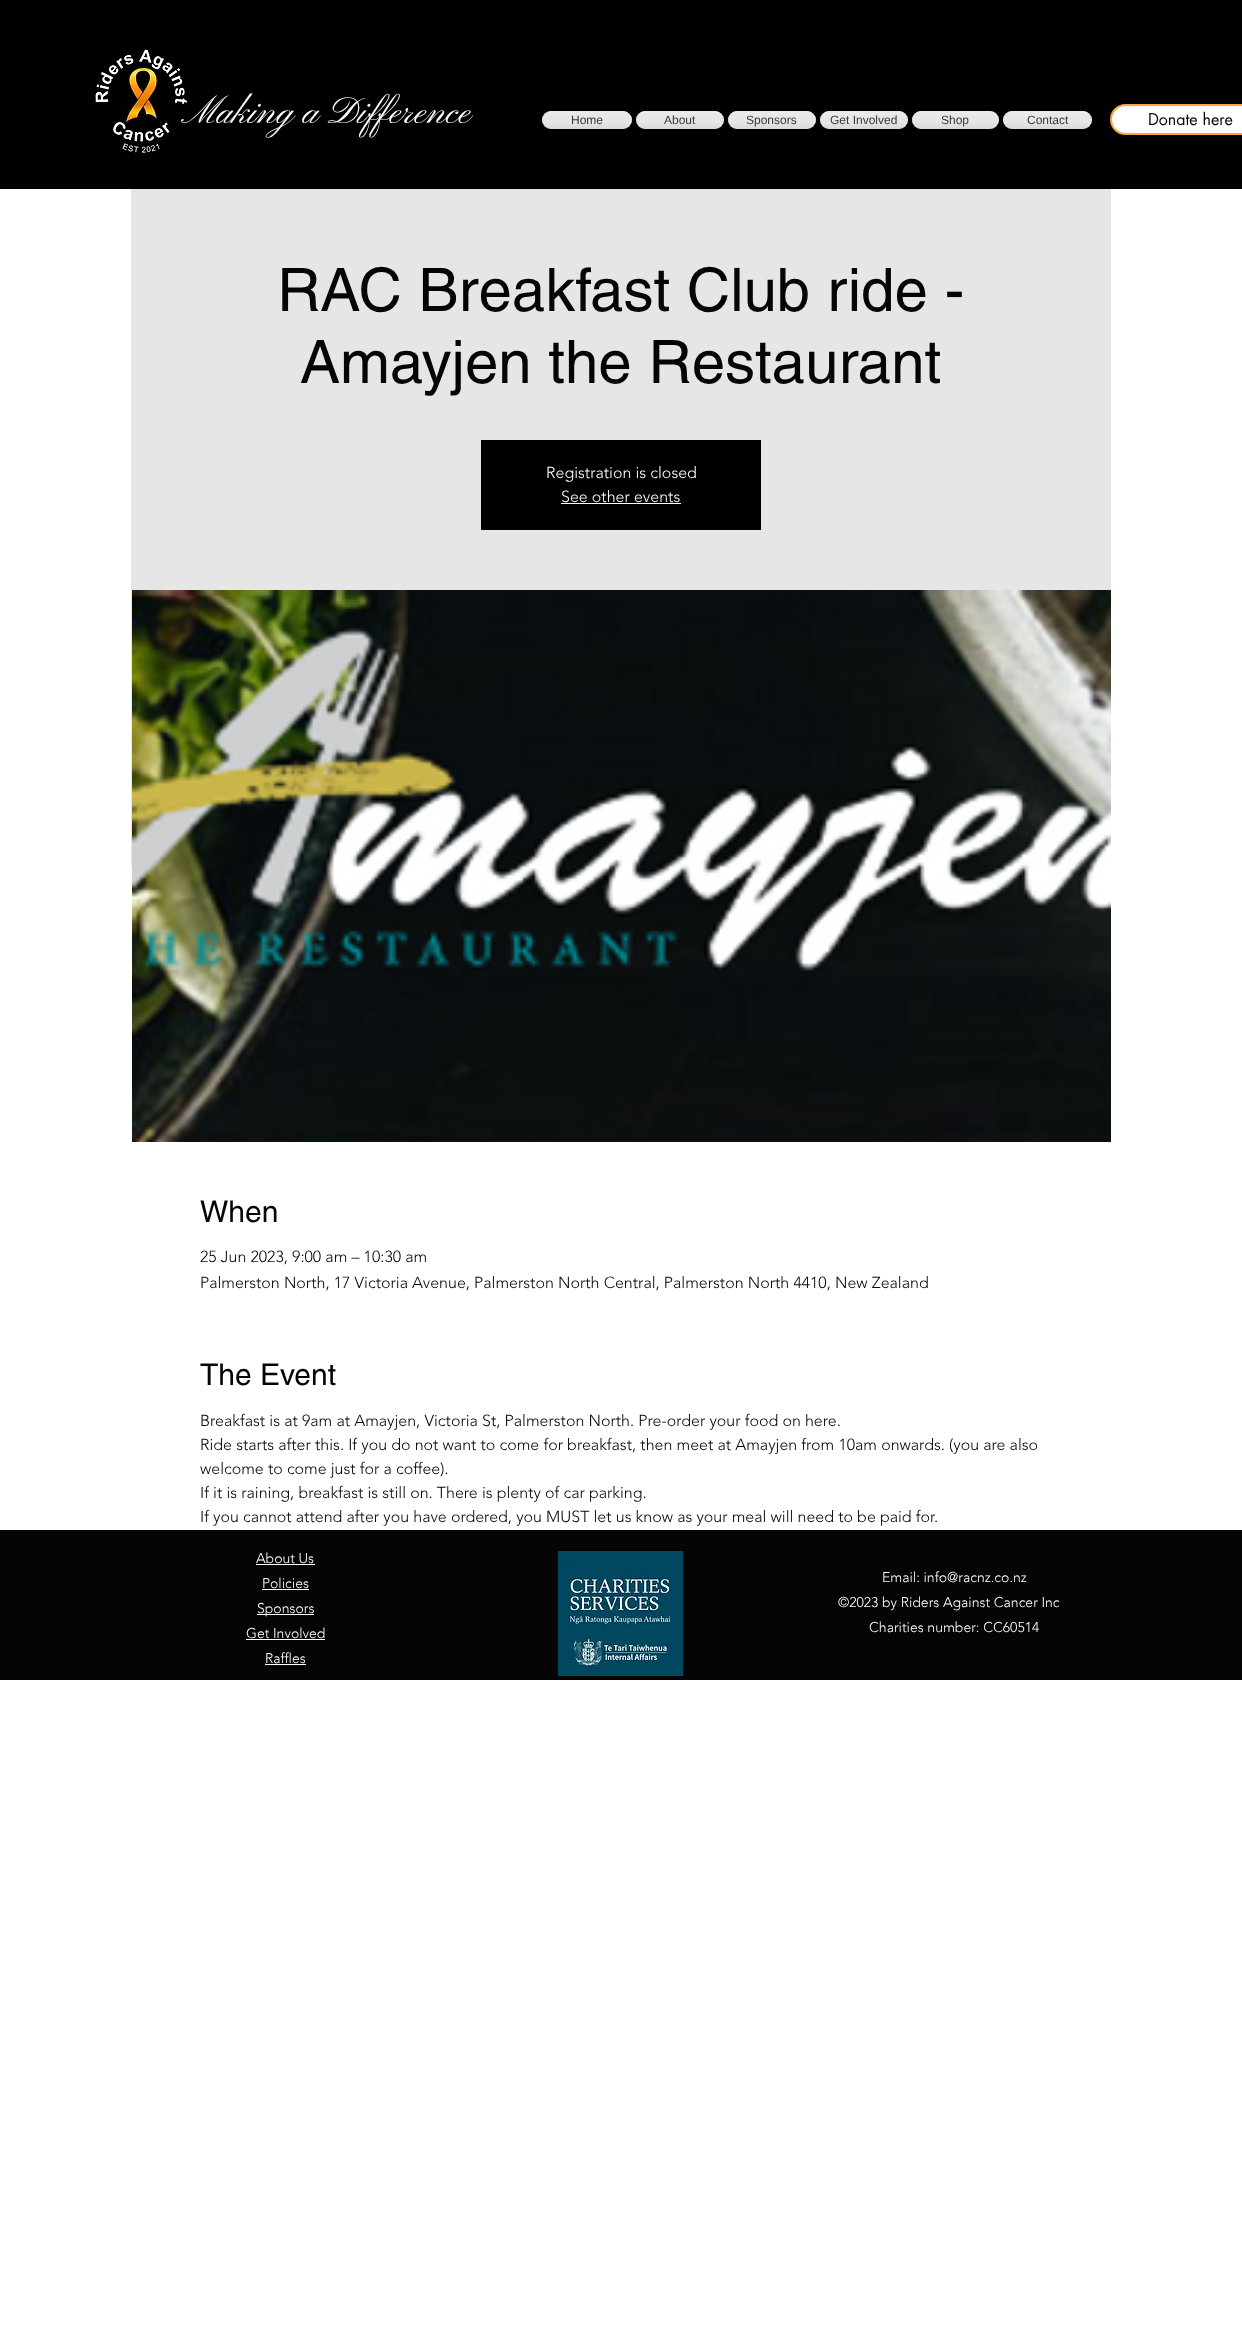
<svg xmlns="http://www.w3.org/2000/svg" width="1242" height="2340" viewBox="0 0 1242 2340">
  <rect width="100%" height="100%" fill="rgb(255,255,255)"/>
  <rect x="0" y="0" width="1242" height="189" fill="rgb(0,0,0)"/>
  <image x="95" y="48" width="92" height="106" href="pic1.png"/>
  <text x="181" y="123" font-family="Pinyon Script" font-size="38" fill="rgb(255,255,255)">Making a Difference</text>
  <rect x="542" y="111" width="90" height="18" rx="9" fill="rgb(255,255,255)"/>
  <image x="542" y="111" width="90" height="18" href="pic2.png"/>
  <image x="542" y="111" width="90" height="18" href="pic3.png"/>
  <text x="571" y="124" font-family="Liberation Sans" font-size="12" fill="rgb(56,56,56)">Home</text>
  <rect x="636" y="111" width="88" height="18" rx="9" fill="rgb(255,255,255)"/>
  <image x="636" y="111" width="88" height="18" href="pic4.png"/>
  <image x="636" y="111" width="88" height="18" href="pic5.png"/>
  <text x="664" y="124" font-family="Liberation Sans" font-size="12" fill="rgb(56,56,56)">About</text>
  <rect x="728" y="111" width="88" height="18" rx="9" fill="rgb(255,255,255)"/>
  <image x="728" y="111" width="88" height="18" href="pic6.png"/>
  <image x="728" y="111" width="88" height="18" href="pic7.png"/>
  <text x="746" y="124" font-family="Liberation Sans" font-size="12" fill="rgb(56,56,56)">Sponsors</text>
  <rect x="820" y="111" width="88" height="18" rx="9" fill="rgb(255,255,255)"/>
  <image x="820" y="111" width="88" height="18" href="pic4.png"/>
  <image x="820" y="111" width="88" height="18" href="pic5.png"/>
  <text x="830" y="124" font-family="Liberation Sans" font-size="12" fill="rgb(56,56,56)">Get Involved</text>
  <rect x="912" y="111" width="87" height="18" rx="9" fill="rgb(255,255,255)"/>
  <image x="912" y="111" width="87" height="18" href="pic8.png"/>
  <image x="912" y="111" width="87" height="18" href="pic9.png"/>
  <text x="941" y="124" font-family="Liberation Sans" font-size="12" fill="rgb(56,56,56)">Shop</text>
  <rect x="1003" y="111" width="89" height="18" rx="9" fill="rgb(255,255,255)"/>
  <image x="1003" y="111" width="89" height="18" href="pic10.png"/>
  <image x="1003" y="111" width="89" height="18" href="pic11.png"/>
  <text x="1027" y="124" font-family="Liberation Sans" font-size="12" fill="rgb(56,56,56)">Contact</text>
  <rect x="1111" y="105" width="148" height="29" rx="14.5" fill="rgb(255,255,255)" stroke="rgb(255,164,64)" stroke-width="2"/>
  <text x="1148" y="125" font-family="futura" font-size="16" fill="rgb(5,5,5)">Donate here</text>
  <rect x="131" y="189" width="980" height="677" fill="rgb(230,230,230)"/>
  <g font-family="helvetica" font-size="60" fill="rgb(5,5,5)">
    <text x="277" y="311">RAC Breakfast Club ride -</text>
    <text x="300" y="383">Amayjen the Restaurant</text>
  </g>
  <rect x="481" y="440" width="280" height="90" fill="rgb(0,0,0)"/>
  <g font-family="'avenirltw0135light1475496'" font-size="16" font-weight="300" fill="rgb(255,255,255)">
    <text x="546" y="478">Registration is closed</text>
    <text x="561" y="502">See other events</text>
  </g>
  <rect x="561" y="503" width="120" height="1" fill="rgb(255,255,255)"/>
  <image x="132" y="590" width="979" height="552" href="pic12.png"/>
  <text x="200" y="1222" font-family="helvetica" font-size="30" fill="rgb(5,5,5)">When</text>
  <g font-family="'avenirltw0135light1475496'" font-size="16" font-weight="300" fill="rgb(5,5,5)">
    <text>
      <tspan x="200" y="1262">25 Jun 2023, 9:00 am – 10:30 am</tspan>
      <tspan x="200" y="1288">Palmerston North, 17 Victoria Avenue, Palmerston North Central, Palmerston North 4410, New Zealand</tspan>
    </text>
  </g>
  <text x="200" y="1385" font-family="helvetica" font-size="30" fill="rgb(5,5,5)">The Event</text>
  <g font-family="'avenirltw0135light1475496'" font-size="16" font-weight="300" fill="rgb(5,5,5)">
    <text>
      <tspan x="200" y="1426">Breakfast is at 9am at Amayjen, Victoria St, Palmerston North. Pre-order your food on here.</tspan>
      <tspan x="200" y="1450">Ride starts after this. If you do not want to come for breakfast, then meet at Amayjen from 10am onwards. (you are also</tspan>
      <tspan x="200" y="1474">welcome to come just for a coffee).</tspan>
      <tspan x="200" y="1498">If it is raining, breakfast is still on. There is plenty of car parking.</tspan>
      <tspan x="200" y="1522">If you cannot attend after you have ordered, you MUST let us know as your meal will need to be paid for.</tspan>
    </text>
  </g>
  <rect x="0" y="1530" width="1242" height="150" fill="rgb(5,5,5)"/>
  <text x="256" y="1563" font-family="'avenirltw0135light1475496'" font-size="14" font-weight="300" fill="rgb(255,255,255)">About Us</text>
  <rect x="256" y="1564" width="59" height="1" fill="rgb(255,255,255)"/>
  <text x="262" y="1588" font-family="'avenirltw0135light1475496'" font-size="14" font-weight="300" fill="rgb(255,255,255)">Policies</text>
  <rect x="262" y="1589" width="47" height="1" fill="rgb(255,255,255)"/>
  <rect x="257" y="1614" width="57" height="1" fill="rgb(255,255,255)"/>
  <g font-family="'avenirltw0135light1475496'" font-size="14" font-weight="300" fill="rgb(255,255,255)">
    <text x="257" y="1613">Sponsors</text>
    <text x="246" y="1638">Get Involved</text>
  </g>
  <rect x="246" y="1639" width="79" height="1" fill="rgb(255,255,255)"/>
  <text x="265" y="1663" font-family="'avenirltw0135light1475496'" font-size="14" font-weight="300" fill="rgb(255,255,255)">Raffles</text>
  <rect x="265" y="1664" width="41" height="1" fill="rgb(255,255,255)"/>
  <image x="558" y="1551" width="125" height="125" href="pic13.png"/>
  <g font-family="'avenirltw0135light1475496'" font-size="14" font-weight="300" fill="rgb(255,255,255)">
    <text x="882" y="1582">Email: info@racnz.co.nz</text>
    <text x="838" y="1607">©2023 by Riders Against Cancer Inc</text>
    <text x="869" y="1632">Charities number: CC60514</text>
  </g>
</svg>
